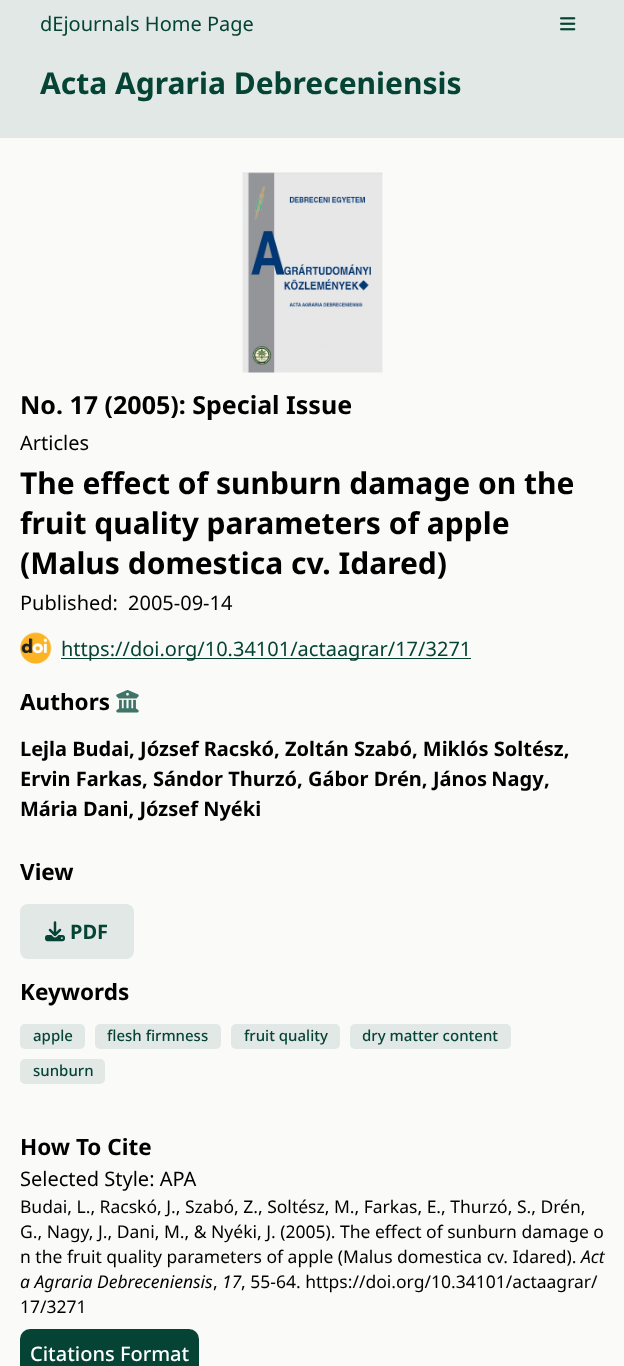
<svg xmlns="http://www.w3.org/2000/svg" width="624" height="1366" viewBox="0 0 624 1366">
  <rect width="100%" height="100%" fill="rgb(250,250,249)"/>
  <rect x="0" y="0" width="624" height="138" fill="rgb(225,232,230)"/>
  <text x="40" y="31" font-family="Noto Sans" font-size="20" fill="rgb(5,68,52)">dEjournals Home Page</text>
  <image x="560" y="17" width="16" height="14" href="pic1.png"/>
  <text x="40" y="94" font-family="Noto Sans" font-size="30" font-weight="bold" fill="rgb(5,68,52)">Acta Agraria Debreceniensis</text>
  <image x="242" y="172" width="141" height="201" href="pic2.png"/>
  <text x="20" y="414" font-family="Noto Sans" font-size="25" font-weight="bold" fill="rgb(0,0,0)">No. 17 (2005): Special Issue</text>
  <text x="20" y="450" font-family="Noto Sans" font-size="20" fill="rgb(0,0,0)">Articles</text>
  <g font-family="Noto Sans" font-size="30" font-weight="bold" fill="rgb(0,0,0)">
    <text>
      <tspan x="20" y="494">The effect of sunburn damage on the</tspan>
      <tspan x="20" y="534">fruit quality parameters of apple</tspan>
      <tspan x="20" y="574">(Malus domestica cv. Idared)</tspan>
    </text>
  </g>
  <g font-family="Noto Sans" font-size="20" fill="rgb(0,0,0)">
    <text x="20" y="610">Published:</text>
    <text x="128" y="610">2005-09-14</text>
  </g>
  <image x="20" y="632" width="32" height="32" href="pic3.png"/>
  <rect x="61" y="658" width="410" height="1" fill="rgb(5,68,52)"/>
  <text x="61" y="656" font-family="Noto Sans" font-size="20" fill="rgb(5,68,52)">https://doi.org/10.34101/actaagrar/17/3271</text>
  <text x="20" y="710" font-family="Noto Sans" font-size="22.5" font-weight="bold" fill="rgb(0,0,0)">Authors</text>
  <image x="116" y="690" width="23" height="23" href="pic4.png"/>
  <g font-family="Noto Sans" font-size="20" font-weight="bold" fill="rgb(0,0,0)">
    <text>
      <tspan x="20" y="756">Lejla Budai, József Racskó, Zoltán Szabó, Miklós Soltész,</tspan>
      <tspan x="20" y="786">Ervin Farkas, Sándor Thurzó, Gábor Drén,</tspan>
    </text>
    <text x="433" y="786" word-spacing="-1">János Nagy</text>
    <text x="544" y="786">,</text>
    <text x="20" y="816">Mária Dani, József Nyéki</text>
  </g>
  <text x="20" y="880" font-family="Noto Sans" font-size="22.5" font-weight="bold" fill="rgb(0,0,0)">View</text>
  <rect x="20" y="904" width="114" height="55" rx="8" fill="rgb(225,232,230)"/>
  <image x="45" y="921" width="20" height="21" href="pic5.png"/>
  <text x="70" y="939" font-family="Noto Sans" font-size="20" font-weight="bold" fill="rgb(5,68,52)">PDF</text>
  <text x="20" y="1000" font-family="Noto Sans" font-size="22.5" font-weight="bold" fill="rgb(0,0,0)">Keywords</text>
  <rect x="20" y="1024" width="65" height="25" rx="5" fill="rgb(225,232,230)"/>
  <text x="33" y="1041" font-family="Noto Sans" font-size="15" font-weight="500" fill="rgb(5,68,52)">apple</text>
  <rect x="95" y="1024" width="126" height="25" rx="5" fill="rgb(225,232,230)"/>
  <text x="107" y="1041" font-family="Noto Sans" font-size="15" font-weight="500" fill="rgb(5,68,52)">flesh firmness</text>
  <rect x="231" y="1024" width="109" height="25" rx="5" fill="rgb(225,232,230)"/>
  <text x="244" y="1041" font-family="Noto Sans" font-size="15" font-weight="500" fill="rgb(5,68,52)">fruit quality</text>
  <rect x="350" y="1024" width="161" height="25" rx="5" fill="rgb(225,232,230)"/>
  <text x="362" y="1041" font-family="Noto Sans" font-size="15" font-weight="500" fill="rgb(5,68,52)">dry matter content</text>
  <rect x="20" y="1059" width="85" height="25" rx="5" fill="rgb(225,232,230)"/>
  <text x="33" y="1076" font-family="Noto Sans" font-size="15" font-weight="500" fill="rgb(5,68,52)">sunburn</text>
  <text x="20" y="1155" font-family="Noto Sans" font-size="22.5" font-weight="bold" fill="rgb(0,0,0)">How To Cite</text>
  <text x="20" y="1186" font-family="Noto Sans" font-size="20" fill="rgb(0,0,0)">Selected Style: APA</text>
  <g font-family="Noto Sans" font-size="17.5" fill="rgb(0,0,0)">
    <text>
      <tspan x="20" y="1213">Budai, L., Racskó, J., Szabó, Z., Soltész, M., Farkas, E., Thurzó, S., Drén,</tspan>
      <tspan x="20" y="1238">G., Nagy, J., Dani, M., &amp; Nyéki, J. (2005). The effect of sunburn damage o</tspan>
      <tspan x="20" y="1263">n the fruit quality parameters of apple (Malus domestica cv. Idared).</tspan>
    </text>
  </g>
  <g font-family="Noto Sans" font-size="17.5" font-style="italic" fill="rgb(0,0,0)">
    <text x="581" y="1263">Act</text>
    <text x="20" y="1288">a Agraria Debreceniensis</text>
    <text x="222" y="1288">17</text>
  </g>
  <g font-family="Noto Sans" font-size="17.5" fill="rgb(0,0,0)">
    <text x="241" y="1288">, 55-64. https://doi.org/10.34101/actaagrar/</text>
    <text x="213" y="1288">,</text>
    <text x="20" y="1313">17/3271</text>
  </g>
  <rect x="20" y="1329" width="179" height="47" rx="10" fill="rgb(5,68,52)"/>
  <text x="30" y="1361" font-family="Noto Sans" font-size="20" font-weight="500" fill="rgb(255,255,255)">Citations Format</text>
</svg>
